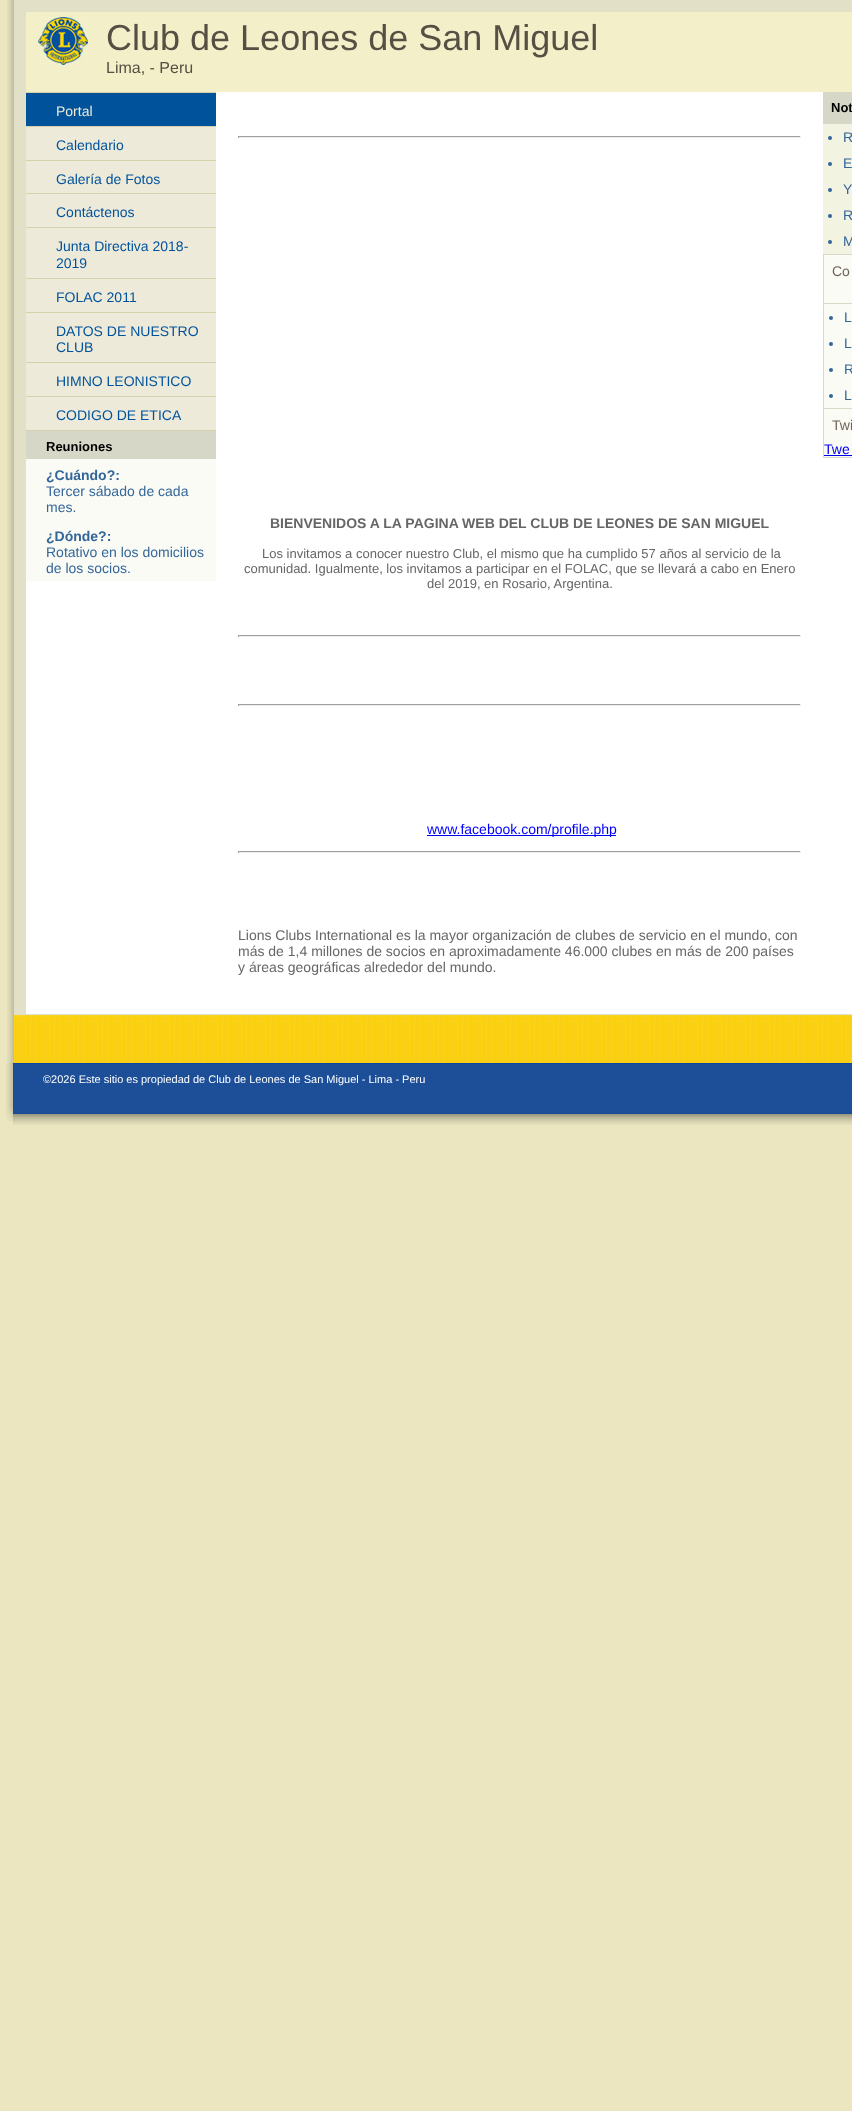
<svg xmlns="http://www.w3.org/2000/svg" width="852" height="2111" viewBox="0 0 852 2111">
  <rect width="100%" height="100%" fill="rgb(235,230,192)"/>
  <image x="7" y="0" width="7" height="1063" href="pic1.png"/>
  <rect x="14" y="0" width="838" height="1015" fill="rgb(226,224,198)"/>
  <image x="14" y="1015" width="838" height="48" href="pic2.png"/>
  <rect x="26" y="12" width="826" height="80" fill="rgb(243,240,201)"/>
  <image x="38" y="17" width="50" height="48" href="pic3.png"/>
  <text x="106" y="50" font-family="Liberation Sans" font-size="36" fill="rgb(88,79,68)">Club de Leones de San Miguel</text>
  <text x="106" y="73" font-family="Liberation Sans" font-size="16" fill="rgb(88,79,68)">Lima, - Peru</text>
  <rect x="26" y="92" width="826" height="922" fill="rgb(255,255,255)"/>
  <rect x="26" y="92" width="190" height="1" fill="rgb(213,208,170)"/>
  <rect x="26" y="126" width="190" height="1" fill="rgb(213,208,170)"/>
  <rect x="26" y="93" width="190" height="33" fill="rgb(0,82,155)"/>
  <text x="56" y="116" font-family="Liberation Sans" font-size="14" fill="rgb(237,234,218)">Portal</text>
  <rect x="26" y="160" width="190" height="1" fill="rgb(213,208,170)"/>
  <rect x="26" y="127" width="190" height="33" fill="rgb(237,234,218)"/>
  <text x="56" y="150" font-family="Liberation Sans" font-size="14" fill="rgb(0,82,155)">Calendario</text>
  <rect x="26" y="193" width="190" height="1" fill="rgb(213,208,170)"/>
  <rect x="26" y="161" width="190" height="32" fill="rgb(237,234,218)"/>
  <text x="56" y="184" font-family="Liberation Sans" font-size="14" fill="rgb(0,82,155)">Galería de Fotos</text>
  <rect x="26" y="227" width="190" height="1" fill="rgb(213,208,170)"/>
  <rect x="26" y="194" width="190" height="33" fill="rgb(237,234,218)"/>
  <text x="56" y="217" font-family="Liberation Sans" font-size="14" fill="rgb(0,82,155)">Contáctenos</text>
  <rect x="26" y="278" width="190" height="1" fill="rgb(213,208,170)"/>
  <rect x="26" y="228" width="190" height="50" fill="rgb(237,234,218)"/>
  <g font-family="Liberation Sans" font-size="14" fill="rgb(0,82,155)">
    <text>
      <tspan x="56" y="251">Junta Directiva 2018-</tspan>
      <tspan x="56" y="268">2019</tspan>
    </text>
  </g>
  <rect x="26" y="312" width="190" height="1" fill="rgb(213,208,170)"/>
  <rect x="26" y="279" width="190" height="33" fill="rgb(237,234,218)"/>
  <text x="56" y="302" font-family="Liberation Sans" font-size="14" fill="rgb(0,82,155)">FOLAC 2011</text>
  <rect x="26" y="362" width="190" height="1" fill="rgb(213,208,170)"/>
  <rect x="26" y="313" width="190" height="49" fill="rgb(237,234,218)"/>
  <g font-family="Liberation Sans" font-size="14" fill="rgb(0,82,155)">
    <text>
      <tspan x="56" y="336">DATOS DE NUESTRO</tspan>
      <tspan x="56" y="352">CLUB</tspan>
    </text>
  </g>
  <rect x="26" y="396" width="190" height="1" fill="rgb(213,208,170)"/>
  <rect x="26" y="363" width="190" height="33" fill="rgb(237,234,218)"/>
  <text x="56" y="386" font-family="Liberation Sans" font-size="14" fill="rgb(0,82,155)">HIMNO LEONISTICO</text>
  <rect x="26" y="430" width="190" height="1" fill="rgb(213,208,170)"/>
  <rect x="26" y="397" width="190" height="33" fill="rgb(237,234,218)"/>
  <text x="56" y="420" font-family="Liberation Sans" font-size="14" fill="rgb(0,82,155)">CODIGO DE ETICA</text>
  <rect x="26" y="459" width="190" height="122" fill="rgb(251,251,246)"/>
  <rect x="26" y="431" width="190" height="28" fill="rgb(215,215,199)"/>
  <text x="46" y="451" font-family="Liberation Sans" font-size="13" font-weight="bold" fill="rgb(0,0,0)">Reuniones</text>
  <text x="46" y="480" font-family="Liberation Sans" font-size="14" font-weight="bold" fill="rgb(51,102,153)">¿Cuándo?:</text>
  <g font-family="Liberation Sans" font-size="14" fill="rgb(51,102,153)">
    <text>
      <tspan x="46" y="496">Tercer sábado de cada</tspan>
      <tspan x="46" y="512">mes.</tspan>
    </text>
  </g>
  <text x="46" y="541" font-family="Liberation Sans" font-size="14" font-weight="bold" fill="rgb(51,102,153)">¿Dónde?:</text>
  <g font-family="Liberation Sans" font-size="14" fill="rgb(51,102,153)">
    <text>
      <tspan x="46" y="557">Rotativo en los domicilios</tspan>
      <tspan x="46" y="573">de los socios.</tspan>
    </text>
  </g>
  <rect x="823" y="124" width="29" height="130" fill="rgb(243,243,225)"/>
  <rect x="823" y="92" width="29" height="31" fill="rgb(215,215,199)"/>
  <text x="831" y="112" font-family="Liberation Sans" font-size="13" font-weight="bold" fill="rgb(0,0,0)">Not</text>
  <rect x="823" y="123" width="29" height="1" fill="rgb(220,216,200)"/>
  <circle cx="830" cy="138" r="2" fill="rgb(51,102,153)"/>
  <text x="843" y="142" font-family="Liberation Sans" font-size="14" fill="rgb(51,102,153)">R</text>
  <circle cx="830" cy="164" r="2" fill="rgb(51,102,153)"/>
  <text x="843" y="168" font-family="Liberation Sans" font-size="14" fill="rgb(51,102,153)">E</text>
  <circle cx="830" cy="190" r="2" fill="rgb(51,102,153)"/>
  <text x="843" y="194" font-family="Liberation Sans" font-size="14" fill="rgb(51,102,153)">Y</text>
  <circle cx="830" cy="216" r="2" fill="rgb(51,102,153)"/>
  <text x="843" y="220" font-family="Liberation Sans" font-size="14" fill="rgb(51,102,153)">R</text>
  <circle cx="830" cy="242" r="2" fill="rgb(51,102,153)"/>
  <text x="843" y="246" font-family="Liberation Sans" font-size="14" fill="rgb(51,102,153)">M</text>
  <rect x="823" y="254" width="29" height="1" fill="rgb(220,216,200)"/>
  <rect x="824" y="255" width="28" height="48" fill="rgb(251,251,246)"/>
  <rect x="823" y="255" width="1" height="48" fill="rgb(220,216,200)"/>
  <text x="832" y="276" font-family="Liberation Sans" font-size="14" fill="rgb(112,99,86)">Co</text>
  <rect x="823" y="303" width="29" height="1" fill="rgb(220,216,200)"/>
  <rect x="824" y="304" width="28" height="104" fill="rgb(251,251,246)"/>
  <rect x="823" y="304" width="1" height="104" fill="rgb(220,216,200)"/>
  <circle cx="831" cy="318" r="2" fill="rgb(51,102,153)"/>
  <text x="844" y="322" font-family="Liberation Sans" font-size="14" fill="rgb(51,102,153)">L</text>
  <circle cx="831" cy="344" r="2" fill="rgb(51,102,153)"/>
  <text x="844" y="348" font-family="Liberation Sans" font-size="14" fill="rgb(51,102,153)">L</text>
  <circle cx="831" cy="370" r="2" fill="rgb(51,102,153)"/>
  <text x="844" y="374" font-family="Liberation Sans" font-size="14" fill="rgb(51,102,153)">R</text>
  <circle cx="831" cy="396" r="2" fill="rgb(51,102,153)"/>
  <text x="844" y="400" font-family="Liberation Sans" font-size="14" fill="rgb(51,102,153)">L</text>
  <rect x="823" y="408" width="29" height="1" fill="rgb(220,216,200)"/>
  <rect x="824" y="409" width="28" height="48" fill="rgb(251,251,246)"/>
  <rect x="823" y="409" width="1" height="48" fill="rgb(220,216,200)"/>
  <text x="832" y="430" font-family="Liberation Sans" font-size="14" fill="rgb(112,99,86)">Twi</text>
  <text x="824" y="454" font-family="Liberation Sans" font-size="14" fill="rgb(0,0,238)">Twe</text>
  <rect x="824" y="455" width="28" height="1" fill="rgb(0,0,238)"/>
  <rect x="823" y="457" width="29" height="1" fill="rgb(220,216,200)"/>
  <rect x="238" y="136" width="563" height="1" fill="rgb(159,159,159)"/>
  <rect x="800" y="136" width="1" height="2" fill="rgb(238,238,238)"/>
  <rect x="238" y="137" width="563" height="1" fill="rgb(238,238,238)"/>
  <rect x="238" y="136" width="1" height="2" fill="rgb(159,159,159)"/>
  <text x="270" y="528" font-family="Liberation Sans" font-size="14" font-weight="bold" fill="rgb(102,102,102)">BIENVENIDOS A LA PAGINA WEB DEL CLUB DE LEONES DE SAN MIGUEL</text>
  <g font-family="Liberation Sans" font-size="13" fill="rgb(102,102,102)">
    <text x="262" y="558">Los invitamos a conocer nuestro Club, el mismo que ha cumplido 57 años al servicio de la</text>
    <text x="244" y="573">comunidad. Igualmente, los invitamos a participar en el FOLAC, que se llevará a cabo en Enero</text>
    <text x="427" y="588">del 2019, en Rosario, Argentina.</text>
  </g>
  <rect x="238" y="635" width="563" height="1" fill="rgb(159,159,159)"/>
  <rect x="800" y="635" width="1" height="2" fill="rgb(238,238,238)"/>
  <rect x="238" y="636" width="563" height="1" fill="rgb(238,238,238)"/>
  <rect x="238" y="635" width="1" height="2" fill="rgb(159,159,159)"/>
  <rect x="238" y="704" width="563" height="1" fill="rgb(159,159,159)"/>
  <rect x="800" y="704" width="1" height="2" fill="rgb(238,238,238)"/>
  <rect x="238" y="705" width="563" height="1" fill="rgb(238,238,238)"/>
  <rect x="238" y="704" width="1" height="2" fill="rgb(159,159,159)"/>
  <rect x="427" y="835" width="189" height="1" fill="rgb(0,0,238)"/>
  <text x="427" y="834" font-family="Liberation Sans" font-size="14" fill="rgb(0,0,255)">www.facebook.com/profile.php</text>
  <rect x="238" y="851" width="563" height="1" fill="rgb(159,159,159)"/>
  <rect x="800" y="851" width="1" height="2" fill="rgb(238,238,238)"/>
  <rect x="238" y="852" width="563" height="1" fill="rgb(238,238,238)"/>
  <rect x="238" y="851" width="1" height="2" fill="rgb(159,159,159)"/>
  <g font-family="Liberation Sans" font-size="14" fill="rgb(102,102,102)">
    <text>
      <tspan x="238" y="940">Lions Clubs International es la mayor organización de clubes de servicio en el mundo, con</tspan>
      <tspan x="238" y="956">más de 1,4 millones de socios en aproximadamente 46.000 clubes en más de 200 países</tspan>
      <tspan x="238" y="972">y áreas geográficas alrededor del mundo.</tspan>
    </text>
  </g>
  <image x="6" y="1063" width="7" height="59" href="pic4.png"/>
  <image x="13" y="1063" width="839" height="62" href="pic5.png"/>
  <text x="43" y="1083" font-family="Liberation Sans" font-size="11" fill="rgb(255,255,255)">©2026 Este sitio es propiedad de Club de Leones de San Miguel - Lima - Peru</text>
</svg>
